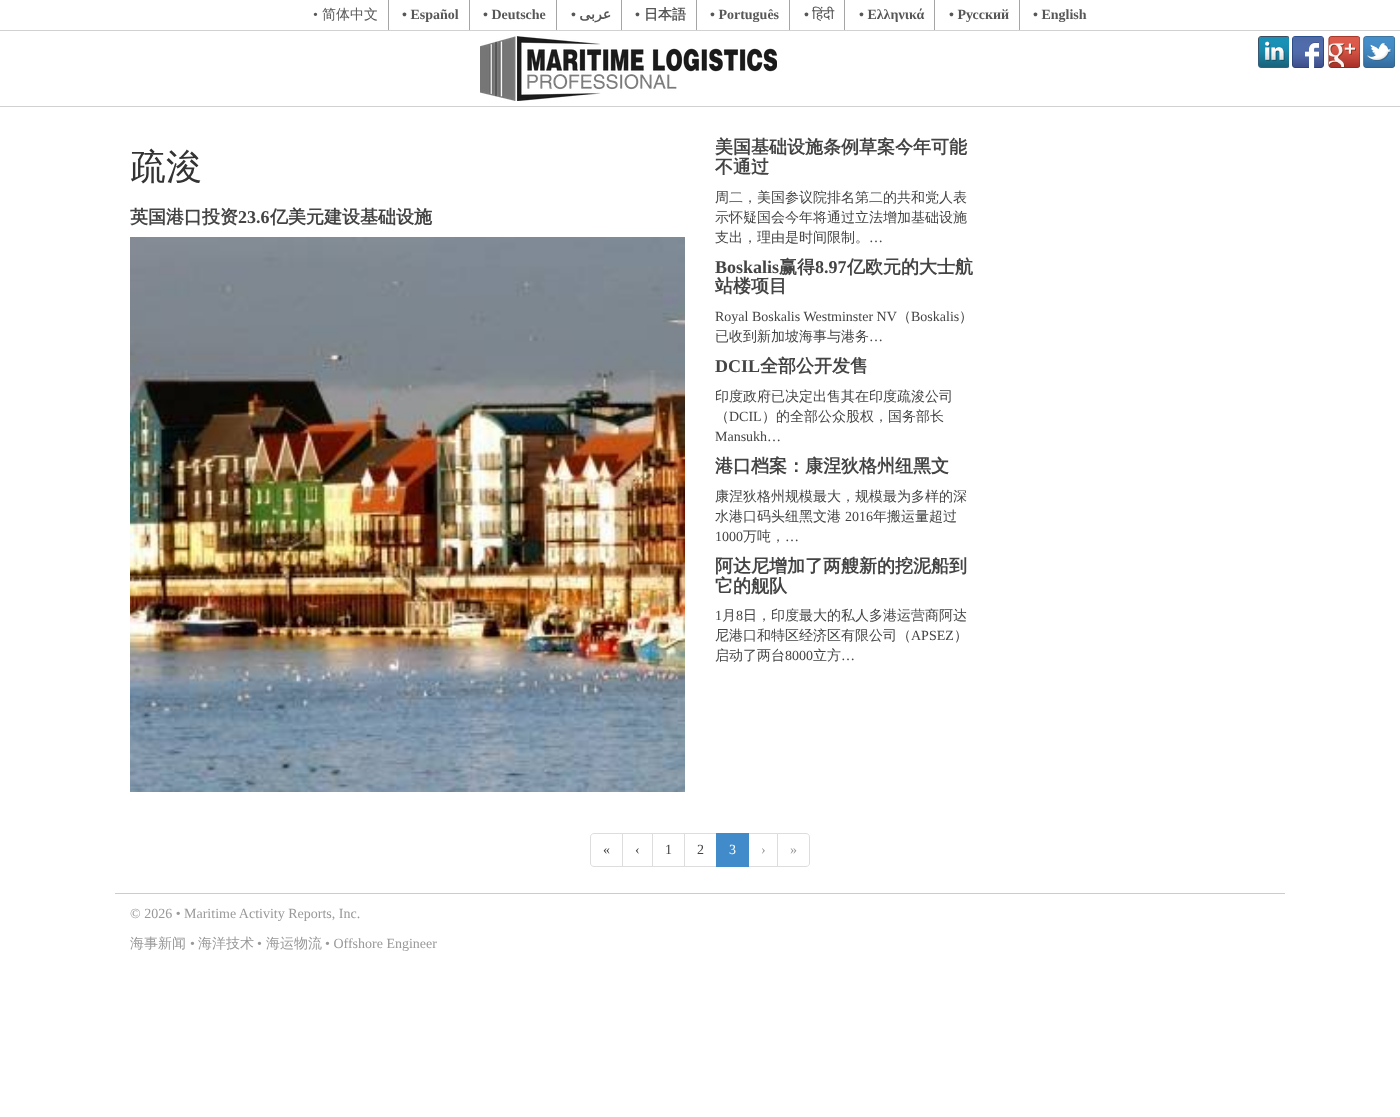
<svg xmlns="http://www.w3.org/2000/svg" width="1400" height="1117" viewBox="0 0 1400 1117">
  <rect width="100%" height="100%" fill="rgb(255,255,255)"/>
  <rect x="0" y="106" width="1400" height="1" fill="rgb(209,209,209)"/>
  <rect x="0" y="30" width="1400" height="1" fill="rgb(209,209,209)"/>
  <rect x="388" y="0" width="1" height="30" fill="rgb(165,165,165)"/>
  <text x="313" y="19" font-family="Liberation Serif" font-size="14" fill="rgb(87,87,87)">•</text>
  <text x="322" y="19" font-family="WenQuanYi Zen Hei" font-size="14" font-weight="500" fill="rgb(87,87,87)">简体中文</text>
  <rect x="469" y="0" width="1" height="30" fill="rgb(165,165,165)"/>
  <text x="402" y="19" font-family="Liberation Serif" font-size="14" font-weight="bold" fill="rgb(87,87,87)">• Español</text>
  <rect x="556" y="0" width="1" height="30" fill="rgb(165,165,165)"/>
  <text x="483" y="19" font-family="Liberation Serif" font-size="14" font-weight="bold" fill="rgb(87,87,87)">• Deutsche</text>
  <rect x="621" y="0" width="1" height="30" fill="rgb(165,165,165)"/>
  <text x="571" y="19" font-family="Liberation Serif" font-size="14" font-weight="bold" fill="rgb(87,87,87)">•</text>
  <text x="611" y="19" font-family="DejaVu Sans" font-size="14" font-weight="bold" direction="rtl" fill="rgb(87,87,87)">عربى</text>
  <rect x="696" y="0" width="1" height="30" fill="rgb(165,165,165)"/>
  <text x="635" y="19" font-family="Liberation Serif" font-size="14" font-weight="bold" fill="rgb(87,87,87)">•</text>
  <text x="644" y="19" font-family="WenQuanYi Zen Hei" font-size="14" font-weight="bold" fill="rgb(87,87,87)">日本語</text>
  <rect x="789" y="0" width="1" height="30" fill="rgb(165,165,165)"/>
  <text x="710" y="19" font-family="Liberation Serif" font-size="14" font-weight="bold" fill="rgb(87,87,87)">• Português</text>
  <rect x="844" y="0" width="1" height="30" fill="rgb(165,165,165)"/>
  <text x="804" y="19" font-family="Liberation Serif" font-size="14" font-weight="bold" fill="rgb(87,87,87)">•</text>
  <text x="812" y="19" font-family="Noto Sans" font-size="14" fill="rgb(87,87,87)">हिंदी</text>
  <rect x="934" y="0" width="1" height="30" fill="rgb(165,165,165)"/>
  <text x="859" y="19" font-family="Liberation Serif" font-size="14" font-weight="bold" fill="rgb(87,87,87)">• Ελληνικά</text>
  <rect x="1019" y="0" width="1" height="30" fill="rgb(165,165,165)"/>
  <g font-family="Liberation Serif" font-size="14" font-weight="bold" fill="rgb(87,87,87)">
    <text x="949" y="19">• Русский</text>
    <text x="1033" y="19">• English</text>
  </g>
  <image x="480" y="36" width="297" height="65" href="pic1.png"/>
  <image x="1258" y="36" width="31" height="32" href="pic2.png"/>
  <image x="1292" y="36" width="32" height="32" href="pic3.png"/>
  <image x="1328" y="36" width="32" height="32" href="pic4.png"/>
  <image x="1363" y="36" width="32" height="32" href="pic5.png"/>
  <text x="130" y="179" font-family="WenQuanYi Zen Hei" font-size="36" font-weight="500" fill="rgb(51,51,51)">疏浚</text>
  <text x="130" y="223" font-family="WenQuanYi Zen Hei" font-size="18" font-weight="bold" fill="rgb(68,68,68)">英国港口投资</text>
  <text x="238" y="223" font-family="Liberation Serif" font-size="18" font-weight="bold" fill="rgb(68,68,68)">23.6</text>
  <text x="270" y="223" font-family="WenQuanYi Zen Hei" font-size="18" font-weight="bold" fill="rgb(68,68,68)">亿美元建设基础设施</text>
  <image x="130" y="237" width="555" height="555" href="pic6.png"/>
  <g font-family="WenQuanYi Zen Hei" font-size="18" font-weight="bold" fill="rgb(68,68,68)">
    <text>
      <tspan x="715" y="153">美国基础设施条例草案今年可能</tspan>
      <tspan x="715" y="173">不通过</tspan>
    </text>
  </g>
  <g font-family="WenQuanYi Zen Hei" font-size="14" font-weight="500" fill="rgb(68,68,68)">
    <text>
      <tspan x="715" y="202">周二，美国参议院排名第二的共和党人表</tspan>
      <tspan x="715" y="222">示怀疑国会今年将通过立法增加基础设施</tspan>
      <tspan x="715" y="242">支出，理由是时间限制。</tspan>
    </text>
  </g>
  <text x="869" y="242" font-family="Liberation Serif" font-size="14" fill="rgb(68,68,68)">…</text>
  <text x="715" y="273" font-family="Liberation Serif" font-size="18" font-weight="bold" fill="rgb(68,68,68)">Boskalis</text>
  <text x="779" y="273" font-family="WenQuanYi Zen Hei" font-size="18" font-weight="bold" fill="rgb(68,68,68)">赢得</text>
  <text x="815" y="273" font-family="Liberation Serif" font-size="18" font-weight="bold" fill="rgb(68,68,68)">8.97</text>
  <g font-family="WenQuanYi Zen Hei" font-size="18" font-weight="bold" fill="rgb(68,68,68)">
    <text x="847" y="273">亿欧元的大士航</text>
    <text x="715" y="292">站楼项目</text>
  </g>
  <text x="715" y="321" font-family="Liberation Serif" font-size="14" fill="rgb(68,68,68)">Royal Boskalis Westminster NV</text>
  <text x="897" y="321" font-family="WenQuanYi Zen Hei" font-size="14" font-weight="500" fill="rgb(68,68,68)">（</text>
  <text x="911" y="321" font-family="Liberation Serif" font-size="14" fill="rgb(68,68,68)">Boskalis</text>
  <g font-family="WenQuanYi Zen Hei" font-size="14" font-weight="500" fill="rgb(68,68,68)">
    <text x="959" y="321">）</text>
    <text x="715" y="341">已收到新加坡海事与港务</text>
  </g>
  <text x="869" y="341" font-family="Liberation Serif" font-size="14" fill="rgb(68,68,68)">…</text>
  <text x="715" y="372" font-family="Liberation Serif" font-size="18" font-weight="bold" fill="rgb(68,68,68)">DCIL</text>
  <text x="760" y="372" font-family="WenQuanYi Zen Hei" font-size="18" font-weight="bold" fill="rgb(68,68,68)">全部公开发售</text>
  <g font-family="WenQuanYi Zen Hei" font-size="14" font-weight="500" fill="rgb(68,68,68)">
    <text>
      <tspan x="715" y="401">印度政府已决定出售其在印度疏浚公司</tspan>
      <tspan x="715" y="421">（</tspan>
    </text>
  </g>
  <text x="729" y="421" font-family="Liberation Serif" font-size="14" fill="rgb(68,68,68)">DCIL</text>
  <text x="762" y="421" font-family="WenQuanYi Zen Hei" font-size="14" font-weight="500" fill="rgb(68,68,68)">）的全部公众股权，国务部长</text>
  <text x="715" y="441" font-family="Liberation Serif" font-size="14" fill="rgb(68,68,68)">Mansukh…</text>
  <text x="715" y="472" font-family="WenQuanYi Zen Hei" font-size="18" font-weight="bold" fill="rgb(68,68,68)">港口档案：康涅狄格州纽黑文</text>
  <g font-family="WenQuanYi Zen Hei" font-size="14" font-weight="500" fill="rgb(68,68,68)">
    <text>
      <tspan x="715" y="501">康涅狄格州规模最大，规模最为多样的深</tspan>
      <tspan x="715" y="521">水港口码头纽黑文港</tspan>
    </text>
  </g>
  <text x="845" y="521" font-family="Liberation Serif" font-size="14" fill="rgb(68,68,68)">2016</text>
  <text x="873" y="521" font-family="WenQuanYi Zen Hei" font-size="14" font-weight="500" fill="rgb(68,68,68)">年搬运量超过</text>
  <text x="715" y="541" font-family="Liberation Serif" font-size="14" fill="rgb(68,68,68)">1000</text>
  <text x="743" y="541" font-family="WenQuanYi Zen Hei" font-size="14" font-weight="500" fill="rgb(68,68,68)">万吨，</text>
  <text x="785" y="541" font-family="Liberation Serif" font-size="14" fill="rgb(68,68,68)">…</text>
  <g font-family="WenQuanYi Zen Hei" font-size="18" font-weight="bold" fill="rgb(68,68,68)">
    <text>
      <tspan x="715" y="572">阿达尼增加了两艘新的挖泥船到</tspan>
      <tspan x="715" y="592">它的舰队</tspan>
    </text>
  </g>
  <text x="715" y="620" font-family="Liberation Serif" font-size="14" fill="rgb(68,68,68)">1</text>
  <text x="722" y="620" font-family="WenQuanYi Zen Hei" font-size="14" font-weight="500" fill="rgb(68,68,68)">月</text>
  <text x="736" y="620" font-family="Liberation Serif" font-size="14" fill="rgb(68,68,68)">8</text>
  <g font-family="WenQuanYi Zen Hei" font-size="14" font-weight="500" fill="rgb(68,68,68)">
    <text x="743" y="620">日，印度最大的私人多港运营商阿达</text>
    <text x="715" y="640">尼港口和特区经济区有限公司（</text>
  </g>
  <text x="911" y="640" font-family="Liberation Serif" font-size="14" fill="rgb(68,68,68)">APSEZ</text>
  <g font-family="WenQuanYi Zen Hei" font-size="14" font-weight="500" fill="rgb(68,68,68)">
    <text x="954" y="640">）</text>
    <text x="715" y="660">启动了两台</text>
  </g>
  <text x="785" y="660" font-family="Liberation Serif" font-size="14" fill="rgb(68,68,68)">8000</text>
  <text x="813" y="660" font-family="WenQuanYi Zen Hei" font-size="14" font-weight="500" fill="rgb(68,68,68)">立方</text>
  <text x="841" y="660" font-family="Liberation Serif" font-size="14" fill="rgb(68,68,68)">…</text>
  <path d="M594 833.5H622.5V866.5H594C592 866.5 590.5 865 590.5 863V837C590.5 835 592 833.5 594 833.5Z" fill="none" stroke="rgb(221,221,221)"/>
  <text x="603" y="854" font-family="Liberation Serif" font-size="14" fill="rgb(68,68,68)">«</text>
  <rect x="622.5" y="833.5" width="30" height="33" fill="none" stroke="rgb(221,221,221)"/>
  <text x="635" y="854" font-family="Liberation Serif" font-size="14" fill="rgb(68,68,68)">‹</text>
  <rect x="652.5" y="833.5" width="32" height="33" fill="none" stroke="rgb(221,221,221)"/>
  <text x="665" y="854" font-family="Liberation Serif" font-size="14" fill="rgb(68,68,68)">1</text>
  <rect x="684.5" y="833.5" width="32" height="33" fill="none" stroke="rgb(221,221,221)"/>
  <text x="697" y="854" font-family="Liberation Serif" font-size="14" fill="rgb(68,68,68)">2</text>
  <rect x="748.5" y="833.5" width="29" height="33" fill="none" stroke="rgb(221,221,221)"/>
  <rect x="716" y="833" width="33" height="34" fill="rgb(66,139,202)"/>
  <text x="729" y="854" font-family="Liberation Serif" font-size="14" fill="rgb(255,255,255)">3</text>
  <text x="761" y="854" font-family="Liberation Serif" font-size="14" fill="rgb(153,153,153)">›</text>
  <path d="M777.5 833.5H806C808 833.5 809.5 835 809.5 837V863C809.5 865 808 866.5 806 866.5H777.5Z" fill="rgb(255,255,255)" stroke="rgb(221,221,221)"/>
  <text x="790" y="854" font-family="Liberation Serif" font-size="14" fill="rgb(153,153,153)">»</text>
  <rect x="115" y="893" width="1170" height="1" fill="rgb(204,204,204)"/>
  <text x="130" y="918" font-family="Liberation Serif" font-size="14" fill="rgb(153,153,153)">© 2026 • Maritime Activity Reports, Inc.</text>
  <text x="130" y="948" font-family="WenQuanYi Zen Hei" font-size="14" font-weight="500" fill="rgb(153,153,153)">海事新闻</text>
  <text x="190" y="948" font-family="Liberation Serif" font-size="14" fill="rgb(153,153,153)">•</text>
  <text x="198" y="948" font-family="WenQuanYi Zen Hei" font-size="14" font-weight="500" fill="rgb(153,153,153)">海洋技术</text>
  <text x="257" y="948" font-family="Liberation Serif" font-size="14" fill="rgb(153,153,153)">•</text>
  <text x="266" y="948" font-family="WenQuanYi Zen Hei" font-size="14" font-weight="500" fill="rgb(153,153,153)">海运物流</text>
  <text x="325" y="948" font-family="Liberation Serif" font-size="14" fill="rgb(153,153,153)">• Offshore Engineer</text>
</svg>
